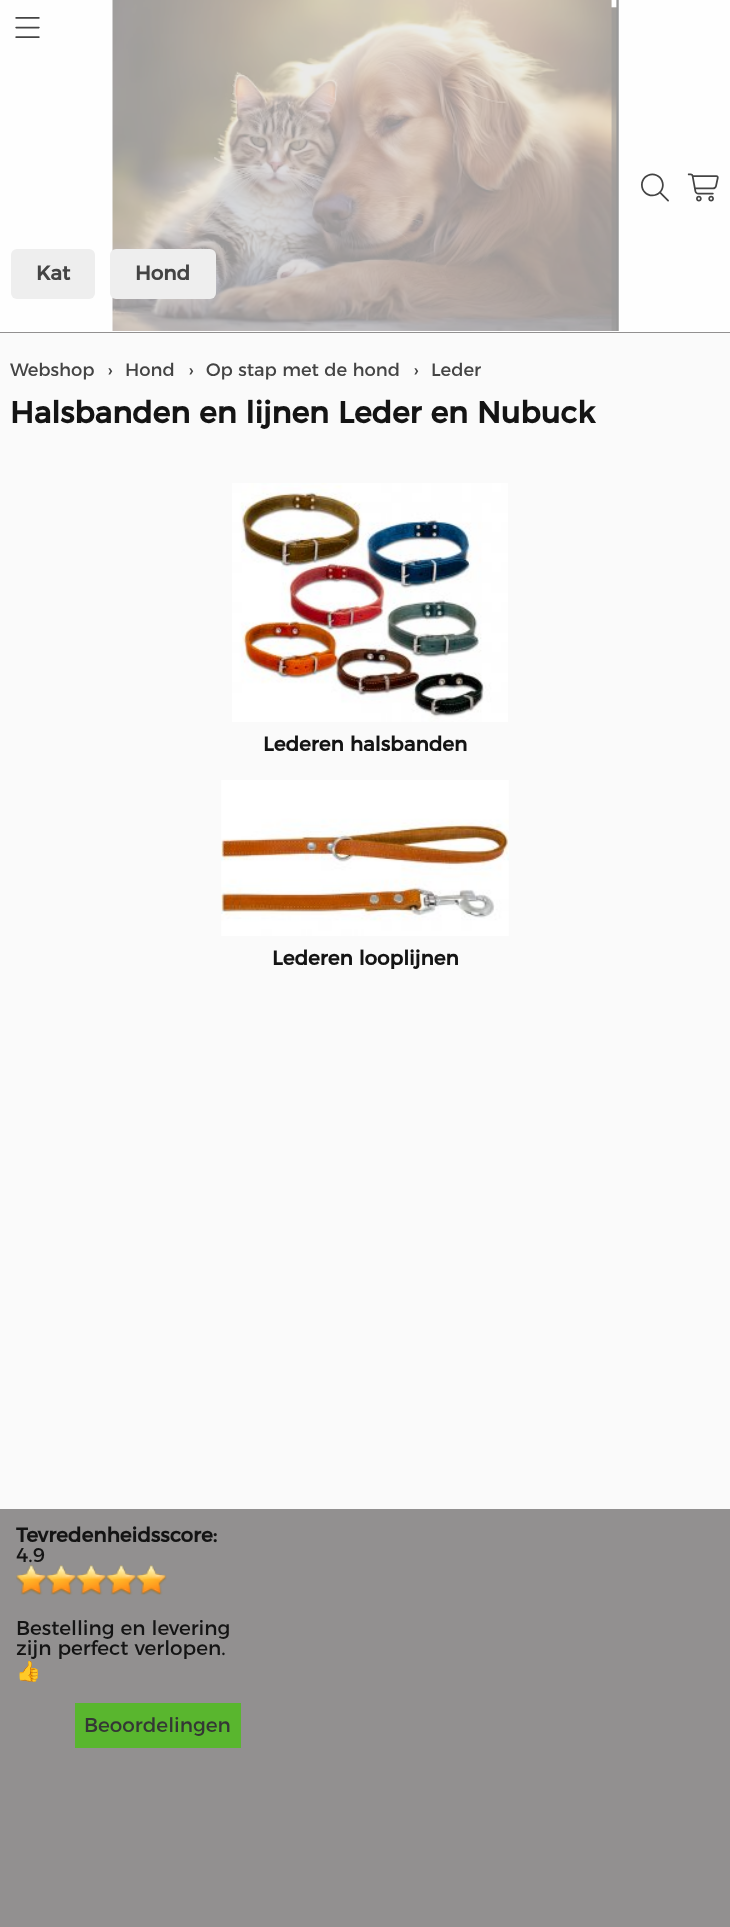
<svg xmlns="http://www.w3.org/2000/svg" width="730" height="1927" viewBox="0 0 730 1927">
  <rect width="100%" height="100%" fill="rgb(146,144,144)"/>
  <rect x="0" y="0" width="730" height="331" fill="rgb(254,254,254)"/>
  <image x="112" y="0" width="507" height="331" href="pic1.png"/>
  <rect x="112" y="0" width="507" height="59" fill="rgba(255,255,255,0.6)"/>
  <image x="15" y="17" width="25" height="21" href="pic2.png"/>
  <rect x="112" y="59" width="507" height="157" fill="rgba(255,255,255,0.6)"/>
  <image x="641" y="173" width="28" height="29" href="pic3.png"/>
  <image x="687" y="173" width="32" height="29" href="pic4.png"/>
  <rect x="112" y="216" width="507" height="115" fill="rgba(255,255,255,0.6)"/>
  <rect x="11" y="249" width="84" height="50" rx="6" fill="rgb(238,238,238)"/>
  <text x="36" y="280" font-family="Montserrat" font-size="20" font-weight="bold" fill="rgb(68,68,68)">Kat</text>
  <rect x="110" y="249" width="106" height="50" rx="6" fill="rgb(238,238,238)"/>
  <text x="135" y="280" font-family="Montserrat" font-size="20" font-weight="bold" fill="rgb(68,68,68)">Hond</text>
  <rect x="0" y="331" width="730" height="1" fill="rgb(255,255,255)"/>
  <rect x="0" y="333" width="730" height="1176" fill="rgb(250,250,250)"/>
  <g font-family="Montserrat" font-size="18" fill="rgb(68,68,68)">
    <text x="10" y="376">Webshop</text>
    <text x="107" y="376">›</text>
    <text x="125" y="376">Hond</text>
    <text x="188" y="376">›</text>
    <text x="206" y="376">Op stap met de hond</text>
    <text x="413" y="376">›</text>
    <text x="431" y="376">Leder</text>
  </g>
  <text x="10" y="423" font-family="Montserrat" font-size="30" font-weight="bold" fill="rgb(20,20,20)">Halsbanden en lijnen Leder en Nubuck</text>
  <image x="232" y="483" width="276" height="239" href="pic5.png"/>
  <text x="263" y="751" font-family="Montserrat" font-size="20" font-weight="bold" fill="rgb(20,20,20)">Lederen halsbanden</text>
  <image x="221" y="780" width="288" height="156" href="pic6.png"/>
  <g font-family="Montserrat" font-size="20" font-weight="bold" fill="rgb(20,20,20)">
    <text x="272" y="965">Lederen looplijnen</text>
    <text x="16" y="1542">Tevredenheidsscore:</text>
  </g>
  <text x="16" y="1562" font-family="Montserrat" font-size="20" fill="rgb(20,20,20)">4.9</text>
  <image x="16" y="1565" width="31" height="30" href="pic7.png"/>
  <image x="46" y="1565" width="31" height="30" href="pic8.png"/>
  <image x="76" y="1565" width="31" height="30" href="pic8.png"/>
  <image x="106" y="1565" width="31" height="30" href="pic8.png"/>
  <image x="136" y="1565" width="31" height="30" href="pic8.png"/>
  <g font-family="Montserrat" font-size="20" fill="rgb(20,20,20)">
    <text>
      <tspan x="16" y="1635">Bestelling en levering</tspan>
      <tspan x="16" y="1655">zijn perfect verlopen.</tspan>
    </text>
  </g>
  <text x="16" y="1678" font-family="Noto Color Emoji" font-size="20" fill="rgb(20,20,20)">👍</text>
  <rect x="75" y="1703" width="166" height="45" fill="rgb(89,182,46)"/>
  <text x="84" y="1732" font-family="Montserrat" font-size="20" fill="rgb(52,55,53)">Beoordelingen</text>
</svg>
